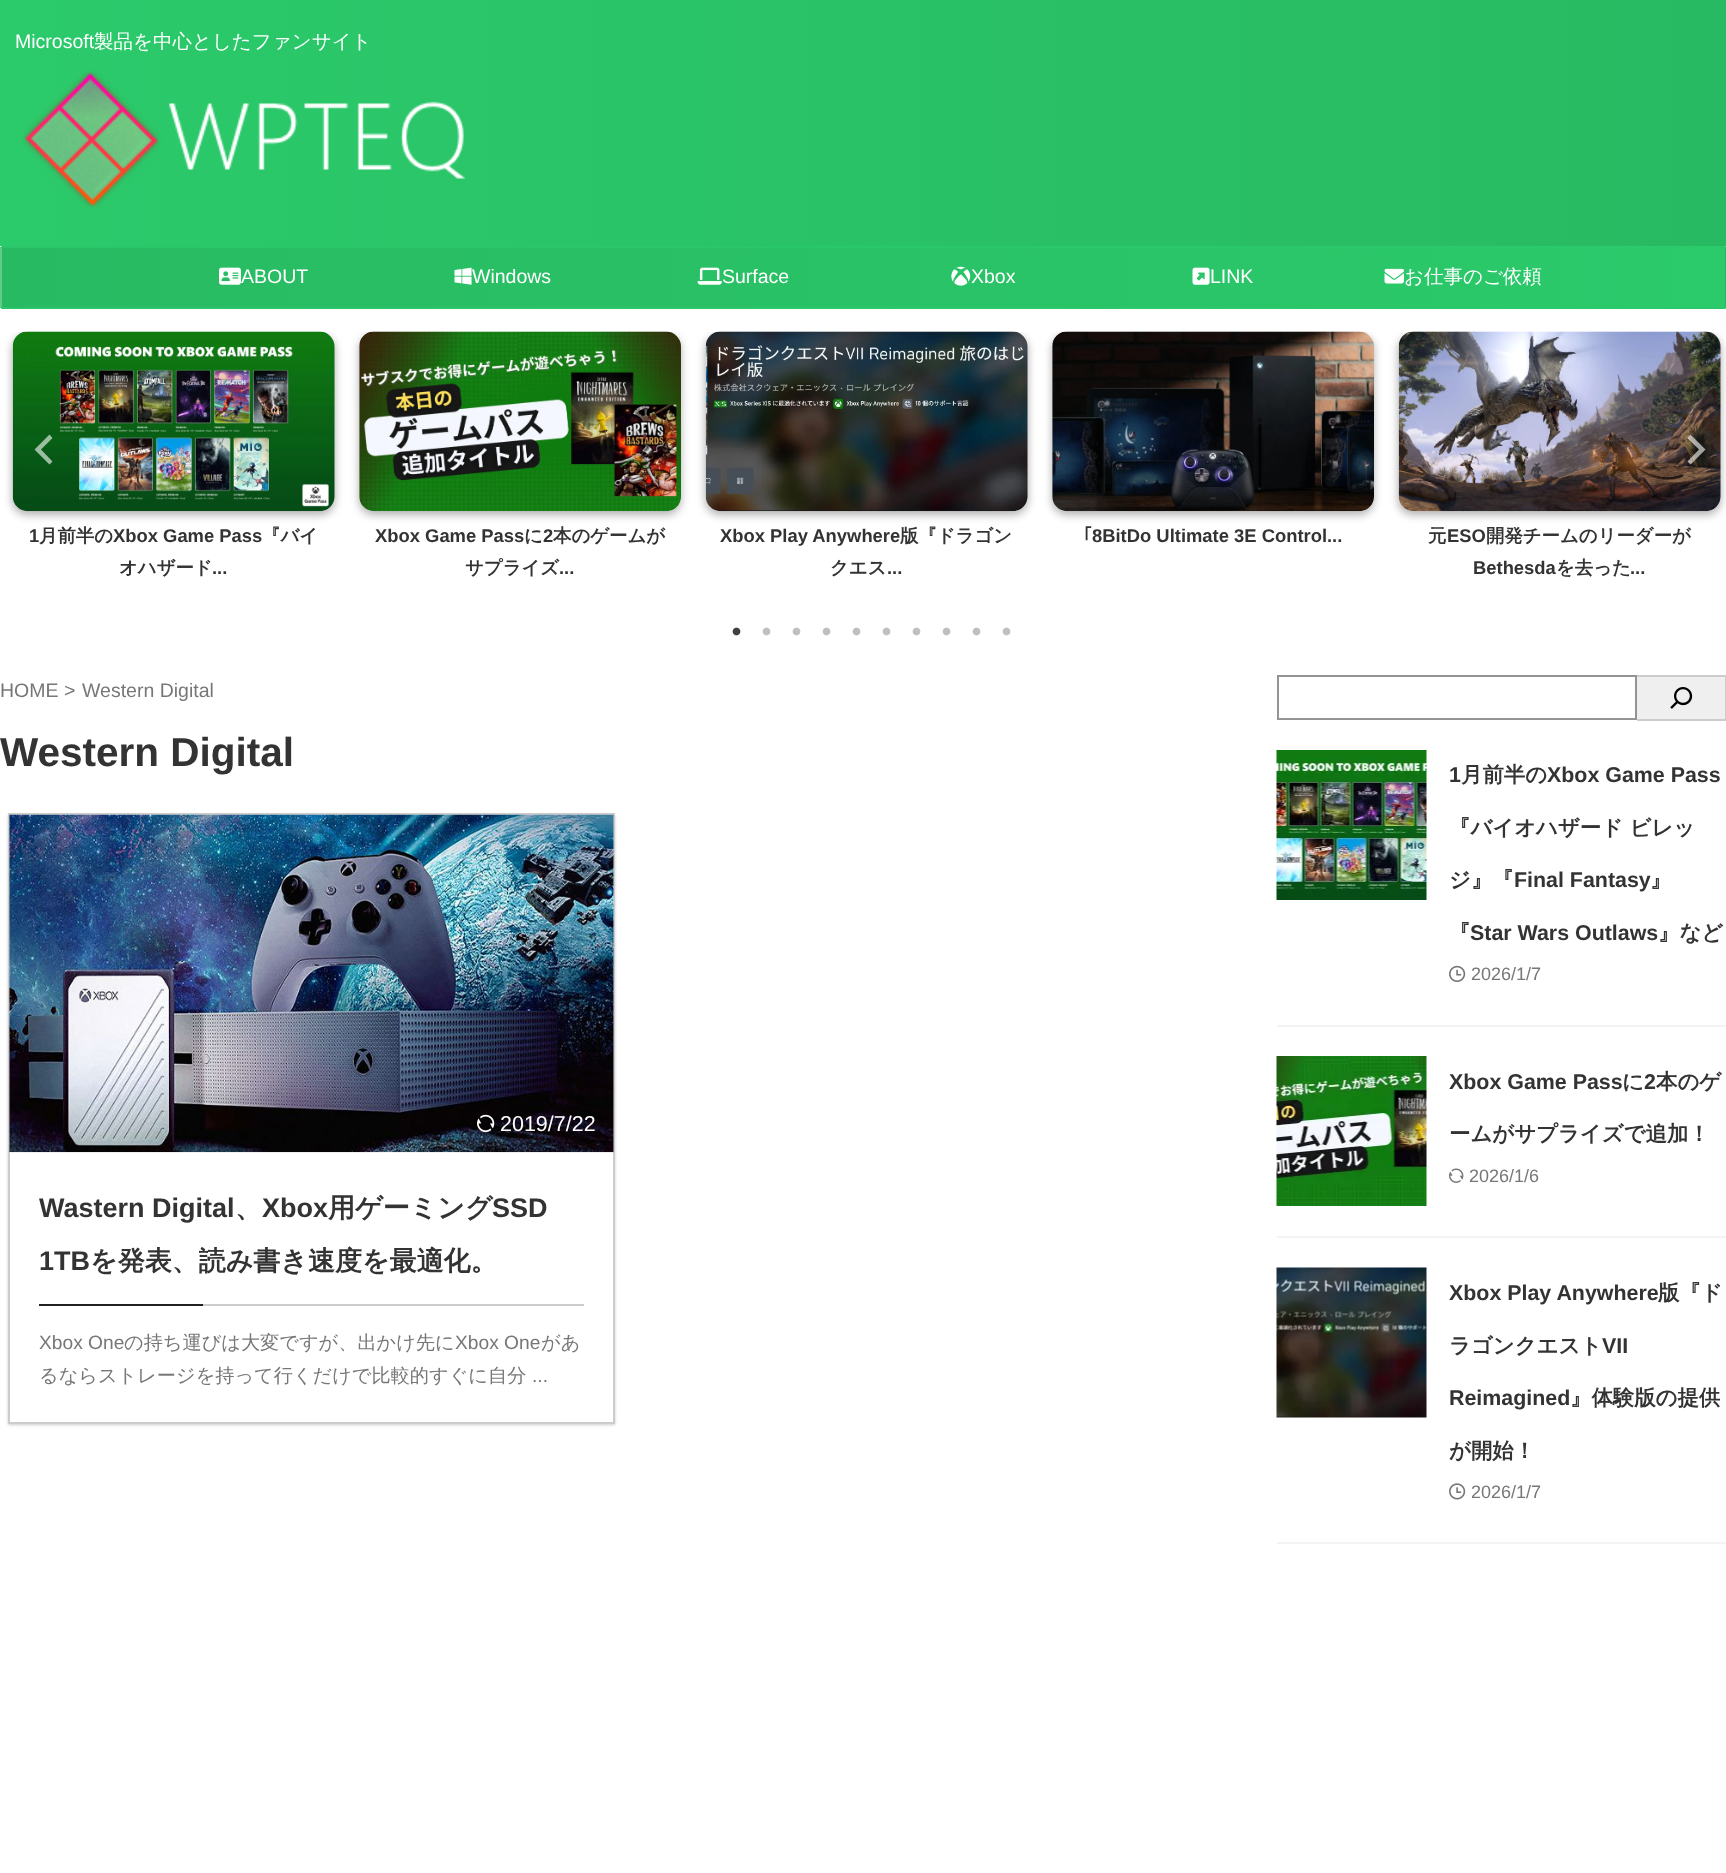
<svg xmlns="http://www.w3.org/2000/svg" width="1726" height="1873" viewBox="0 0 1726 1873">
  <defs>
    <linearGradient id="g1" gradientUnits="userSpaceOnUse" x1="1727" y1="123" x2="0" y2="123"><stop offset="0" stop-color="rgb(40,186,98)"/><stop offset="1" stop-color="rgb(43,202,107)"/></linearGradient>
    <linearGradient id="g2" gradientUnits="userSpaceOnUse" x1="1725" y1="278" x2="1.5" y2="277"><stop offset="0" stop-color="rgb(43,202,107)"/><stop offset="1" stop-color="rgb(40,186,98)"/></linearGradient>
    <linearGradient id="g3" gradientUnits="userSpaceOnUse" x1="1725" y1="278" x2="1.5" y2="277"><stop offset="0" stop-color="rgb(43,202,107)"/><stop offset="1" stop-color="rgb(42,198,105)"/></linearGradient>
    <clipPath id="clip1"><rect x="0" y="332" width="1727" height="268"/></clipPath>
  </defs>
  <rect width="100%" height="100%" fill="rgb(255,255,255)"/>
  <rect x="1" y="246" width="1725" height="2" fill="rgb(96,215,144)"/>
  <rect x="0" y="0" width="1726" height="246" fill="url(#g1)"/>
  <text x="15" y="48" font-family="Liberation Sans" font-size="19.5" fill="rgb(255,255,255)">Microsoft</text>
  <text x="94" y="48" font-family="WenQuanYi Zen Hei" font-size="19.5" font-weight="500" fill="rgb(255,255,255)">製品を中心としたファンサイト</text>
  <image x="23" y="71" width="442" height="137" href="pic1.png"/>
  <rect x="2" y="248" width="1723" height="61" fill="url(#g2)"/>
  <rect x="2" y="246" width="1723" height="2" fill="url(#g3)"/>
  <path d="M1725.5 247V308" fill="none" stroke="rgb(40,186,98)" stroke-width="1.5"/>
  <rect x="1" y="307" width="1725" height="2" fill="rgba(43,202,107,0.75)"/>
  <rect x="0" y="247" width="2" height="61" fill="rgba(40,186,98,0.75)"/>
  <image x="219" y="267" width="22" height="18" href="pic2.png"/>
  <text x="241" y="283" font-family="Liberation Sans" font-size="19.5" fill="rgb(255,255,255)">ABOUT</text>
  <image x="454" y="267" width="18" height="18" href="pic3.png"/>
  <text x="472" y="283" font-family="Liberation Sans" font-size="19.5" fill="rgb(255,255,255)">Windows</text>
  <image x="697" y="267" width="25" height="18" href="pic4.png"/>
  <text x="722" y="283" font-family="Liberation Sans" font-size="19.5" fill="rgb(255,255,255)">Surface</text>
  <image x="951" y="266" width="20" height="20" href="pic5.png"/>
  <text x="971" y="283" font-family="Liberation Sans" font-size="19.5" fill="rgb(255,255,255)">Xbox</text>
  <image x="1192" y="267" width="18" height="18" href="pic6.png"/>
  <text x="1210" y="283" font-family="Liberation Sans" font-size="19.5" fill="rgb(255,255,255)">LINK</text>
  <image x="1384" y="268" width="20" height="16" href="pic7.png"/>
  <text x="1404" y="283" font-family="WenQuanYi Zen Hei" font-size="19.5" font-weight="500" fill="rgb(255,255,255)">お仕事のご依頼</text>
  <g clip-path="url(#clip1)">
    <rect x="12" y="335" width="323" height="180" rx="15" fill="rgba(0,0,0,0.3)" filter="blur(4px)"/>
  </g>
  <image x="12" y="331" width="323" height="181" href="pic8.png"/>
  <path d="M41 449.5L52.5 461.5L49.5 464.5L34.5 449.5L49.5 434.5L52.5 438Z" fill="rgba(255,255,255,0.6)"/>
  <g clip-path="url(#clip1)">
    <rect x="1398" y="335" width="323" height="180" rx="15" fill="rgba(0,0,0,0.3)" filter="blur(4px)"/>
  </g>
  <image x="1398" y="331" width="323" height="181" href="pic12.png"/>
  <path d="M1699 449.5L1687.5 438L1690.5 434.5L1705.5 449.5L1690.5 464.5L1687.5 461.5Z" fill="rgba(255,255,255,0.6)"/>
  <text x="29" y="542" font-family="Liberation Sans" font-size="18.4" font-weight="bold" fill="rgb(51,51,51)">1</text>
  <text x="39" y="542" font-family="WenQuanYi Zen Hei" font-size="18.4" font-weight="bold" fill="rgb(51,51,51)">月前半の</text>
  <text x="113" y="542" font-family="Liberation Sans" font-size="18.4" font-weight="bold" fill="rgb(51,51,51)">Xbox Game Pass</text>
  <g font-family="WenQuanYi Zen Hei" font-size="18.4" font-weight="bold" fill="rgb(51,51,51)">
    <text x="262" y="542">『バイ</text>
    <text x="119" y="574">オハザード</text>
  </g>
  <text x="212" y="574" font-family="Liberation Sans" font-size="18.4" font-weight="bold" fill="rgb(51,51,51)">...</text>
  <g clip-path="url(#clip1)">
    <rect x="359" y="335" width="322" height="180" rx="15" fill="rgba(0,0,0,0.3)" filter="blur(4px)"/>
  </g>
  <image x="359" y="331" width="322" height="181" href="pic9.png"/>
  <text x="375" y="542" font-family="Liberation Sans" font-size="18.4" font-weight="bold" fill="rgb(51,51,51)">Xbox Game Pass</text>
  <text x="524" y="542" font-family="WenQuanYi Zen Hei" font-size="18.4" font-weight="bold" fill="rgb(51,51,51)">に</text>
  <text x="543" y="542" font-family="Liberation Sans" font-size="18.4" font-weight="bold" fill="rgb(51,51,51)">2</text>
  <g font-family="WenQuanYi Zen Hei" font-size="18.4" font-weight="bold" fill="rgb(51,51,51)">
    <text x="553" y="542">本のゲームが</text>
    <text x="465" y="574">サプライズ</text>
  </g>
  <text x="559" y="574" font-family="Liberation Sans" font-size="18.4" font-weight="bold" fill="rgb(51,51,51)">...</text>
  <g clip-path="url(#clip1)">
    <rect x="705" y="335" width="323" height="180" rx="15" fill="rgba(0,0,0,0.3)" filter="blur(4px)"/>
  </g>
  <image x="705" y="331" width="323" height="181" href="pic10.png"/>
  <text x="720" y="542" font-family="Liberation Sans" font-size="18.4" font-weight="bold" fill="rgb(51,51,51)">Xbox Play Anywhere</text>
  <g font-family="WenQuanYi Zen Hei" font-size="18.4" font-weight="bold" fill="rgb(51,51,51)">
    <text x="900" y="542">版『ドラゴン</text>
    <text x="830" y="574">クエス</text>
  </g>
  <text x="887" y="574" font-family="Liberation Sans" font-size="18.4" font-weight="bold" fill="rgb(51,51,51)">...</text>
  <g clip-path="url(#clip1)">
    <rect x="1052" y="335" width="322" height="180" rx="15" fill="rgba(0,0,0,0.3)" filter="blur(4px)"/>
  </g>
  <image x="1052" y="331" width="322" height="181" href="pic11.png"/>
  <text x="1083" y="542" font-family="IPAPGothic" font-size="18.4" font-weight="bold" fill="rgb(51,51,51)">｢</text>
  <text x="1092" y="542" font-family="Liberation Sans" font-size="18.4" font-weight="bold" fill="rgb(51,51,51)">8BitDo Ultimate 3E Control...</text>
  <text x="1428" y="542" font-family="WenQuanYi Zen Hei" font-size="18.4" font-weight="bold" fill="rgb(51,51,51)">元</text>
  <text x="1447" y="542" font-family="Liberation Sans" font-size="18.4" font-weight="bold" fill="rgb(51,51,51)">ESO</text>
  <text x="1486" y="542" font-family="WenQuanYi Zen Hei" font-size="18.4" font-weight="bold" fill="rgb(51,51,51)">開発チームのリーダーが</text>
  <text x="1473" y="574" font-family="Liberation Sans" font-size="18.4" font-weight="bold" fill="rgb(51,51,51)">Bethesda</text>
  <text x="1556" y="574" font-family="WenQuanYi Zen Hei" font-size="18.4" font-weight="bold" fill="rgb(51,51,51)">を去った</text>
  <text x="1630" y="574" font-family="Liberation Sans" font-size="18.4" font-weight="bold" fill="rgb(51,51,51)">...</text>
  <image x="732" y="627" width="9" height="9" href="pic13.png"/>
  <image x="762" y="627" width="9" height="9" href="pic14.png"/>
  <image x="792" y="627" width="9" height="9" href="pic14.png"/>
  <image x="822" y="627" width="9" height="9" href="pic14.png"/>
  <image x="852" y="627" width="9" height="9" href="pic14.png"/>
  <image x="882" y="627" width="9" height="9" href="pic14.png"/>
  <image x="912" y="627" width="9" height="9" href="pic14.png"/>
  <image x="942" y="627" width="9" height="9" href="pic14.png"/>
  <image x="972" y="627" width="9" height="9" href="pic14.png"/>
  <image x="1002" y="627" width="9" height="9" href="pic14.png"/>
  <g font-family="Liberation Sans" font-size="19.5" fill="rgb(119,119,119)">
    <text x="0" y="697">HOME &gt;</text>
    <text x="82" y="697">Western Digital</text>
  </g>
  <text x="0" y="766" font-family="Liberation Sans" font-size="40.5" font-weight="bold" fill="rgb(51,51,51)">Western Digital</text>
  <rect x="8" y="815" width="607" height="610" fill="rgba(0,0,0,0.2)" filter="blur(1.5px)"/>
  <rect x="10" y="1152" width="603" height="270" fill="rgb(255,255,255)"/>
  <rect x="9" y="814" width="605" height="609" fill="none" stroke="rgb(204,204,204)" stroke-width="2"/>
  <image x="9" y="814" width="605" height="339" href="pic15.png"/>
  <image x="477" y="1114" width="18" height="19" href="pic16.png"/>
  <text x="500" y="1131" font-family="Liberation Sans" font-size="21.5" fill="rgb(255,255,255)">2019/7/22</text>
  <rect x="203" y="1304" width="381" height="2" fill="rgb(204,204,204)"/>
  <text x="39" y="1217" font-family="Liberation Sans" font-size="27" font-weight="bold" fill="rgb(51,51,51)">Wastern Digital</text>
  <text x="235" y="1217" font-family="WenQuanYi Zen Hei" font-size="27" font-weight="bold" fill="rgb(51,51,51)">、</text>
  <text x="262" y="1217" font-family="Liberation Sans" font-size="27" font-weight="bold" fill="rgb(51,51,51)">Xbox</text>
  <text x="328" y="1217" font-family="WenQuanYi Zen Hei" font-size="27" font-weight="bold" fill="rgb(51,51,51)">用ゲーミング</text>
  <g font-family="Liberation Sans" font-size="27" font-weight="bold" fill="rgb(51,51,51)">
    <text x="492" y="1217">SSD</text>
    <text x="39" y="1270">1TB</text>
  </g>
  <text x="90" y="1270" font-family="WenQuanYi Zen Hei" font-size="27" font-weight="bold" fill="rgb(51,51,51)">を発表、読み書き速度を最適化。</text>
  <rect x="39" y="1304" width="164" height="2" fill="rgb(33,33,33)"/>
  <text x="39" y="1349" font-family="Liberation Sans" font-size="19.2" fill="rgb(119,119,119)">Xbox One</text>
  <text x="124" y="1349" font-family="WenQuanYi Zen Hei" font-size="19.2" font-weight="500" fill="rgb(119,119,119)">の持ち運びは大変ですが、出かけ先に</text>
  <text x="455" y="1349" font-family="Liberation Sans" font-size="19.2" fill="rgb(119,119,119)">Xbox One</text>
  <g font-family="WenQuanYi Zen Hei" font-size="19.2" font-weight="500" fill="rgb(119,119,119)">
    <text x="541" y="1349">があ</text>
    <text x="39" y="1382">るならストレージを持って行くだけで比較的すぐに自分</text>
  </g>
  <text x="532" y="1382" font-family="Liberation Sans" font-size="19.2" fill="rgb(119,119,119)">...</text>
  <rect x="1278" y="676" width="358" height="43" fill="none" stroke="rgb(148,148,148)" stroke-width="2"/>
  <rect x="1637" y="677" width="88" height="42" fill="rgb(239,239,239)"/>
  <rect x="1637" y="675" width="89" height="2" fill="rgb(204,204,204)"/>
  <rect x="1725" y="675" width="1" height="45" fill="rgb(204,204,204)"/>
  <rect x="1637" y="719" width="89" height="2" fill="rgb(204,204,204)"/>
  <image x="1670" y="687" width="23" height="22" href="pic17.png"/>
  <rect x="1277" y="1025" width="449" height="2" fill="rgb(243,243,243)"/>
  <image x="1276" y="750" width="151" height="150" href="pic18.png"/>
  <text x="1449" y="782" font-family="Liberation Sans" font-size="21.4" font-weight="bold" fill="rgb(51,51,51)">1</text>
  <text x="1461" y="782" font-family="WenQuanYi Zen Hei" font-size="21.4" font-weight="bold" fill="rgb(51,51,51)">月前半の</text>
  <text x="1547" y="782" font-family="Liberation Sans" font-size="21.4" font-weight="bold" fill="rgb(51,51,51)">Xbox Game Pass</text>
  <g font-family="WenQuanYi Zen Hei" font-size="21.4" font-weight="bold" fill="rgb(51,51,51)">
    <text x="1449" y="835">『バイオハザード ビレッ</text>
    <text x="1449" y="887">ジ』『</text>
  </g>
  <text x="1514" y="887" font-family="Liberation Sans" font-size="21.4" font-weight="bold" fill="rgb(51,51,51)">Final Fantasy</text>
  <g font-family="WenQuanYi Zen Hei" font-size="21.4" font-weight="bold" fill="rgb(51,51,51)">
    <text x="1650" y="887">』</text>
    <text x="1449" y="940">『</text>
  </g>
  <text x="1470" y="940" font-family="Liberation Sans" font-size="21.4" font-weight="bold" fill="rgb(51,51,51)">Star Wars Outlaws</text>
  <text x="1658" y="940" font-family="WenQuanYi Zen Hei" font-size="21.4" font-weight="bold" fill="rgb(51,51,51)">』など</text>
  <image x="1449" y="965" width="17" height="17" href="pic19.png"/>
  <text x="1471" y="980" font-family="Liberation Sans" font-size="18" fill="rgb(119,119,119)">2026/1/7</text>
  <rect x="1277" y="1236" width="449" height="2" fill="rgb(243,243,243)"/>
  <image x="1276" y="1056" width="151" height="150" href="pic20.png"/>
  <text x="1449" y="1089" font-family="Liberation Sans" font-size="21.4" font-weight="bold" fill="rgb(51,51,51)">Xbox Game Pass</text>
  <text x="1622" y="1089" font-family="WenQuanYi Zen Hei" font-size="21.4" font-weight="bold" fill="rgb(51,51,51)">に</text>
  <text x="1644" y="1089" font-family="Liberation Sans" font-size="21.4" font-weight="bold" fill="rgb(51,51,51)">2</text>
  <g font-family="WenQuanYi Zen Hei" font-size="21.4" font-weight="bold" fill="rgb(51,51,51)">
    <text x="1656" y="1089">本のゲ</text>
    <text x="1449" y="1141">ームがサプライズで追加！</text>
  </g>
  <image x="1449" y="1168" width="15" height="15" href="pic21.png"/>
  <text x="1469" y="1182" font-family="Liberation Sans" font-size="18" fill="rgb(119,119,119)">2026/1/6</text>
  <rect x="1277" y="1542" width="449" height="2" fill="rgb(243,243,243)"/>
  <image x="1276" y="1267" width="151" height="151" href="pic22.png"/>
  <text x="1449" y="1300" font-family="Liberation Sans" font-size="21.4" font-weight="bold" fill="rgb(51,51,51)">Xbox Play Anywhere</text>
  <g font-family="WenQuanYi Zen Hei" font-size="21.4" font-weight="bold" fill="rgb(51,51,51)">
    <text x="1658" y="1300">版『ド</text>
    <text x="1449" y="1353">ラゴンクエスト</text>
  </g>
  <g font-family="Liberation Sans" font-size="21.4" font-weight="bold" fill="rgb(51,51,51)">
    <text x="1602" y="1353">VII</text>
    <text x="1449" y="1405">Reimagined</text>
  </g>
  <g font-family="WenQuanYi Zen Hei" font-size="21.4" font-weight="bold" fill="rgb(51,51,51)">
    <text x="1570" y="1405">』体験版の提供</text>
    <text x="1449" y="1458">が開始！</text>
  </g>
  <image x="1449" y="1483" width="17" height="17" href="pic23.png"/>
  <text x="1471" y="1498" font-family="Liberation Sans" font-size="18" fill="rgb(119,119,119)">2026/1/7</text>
</svg>
